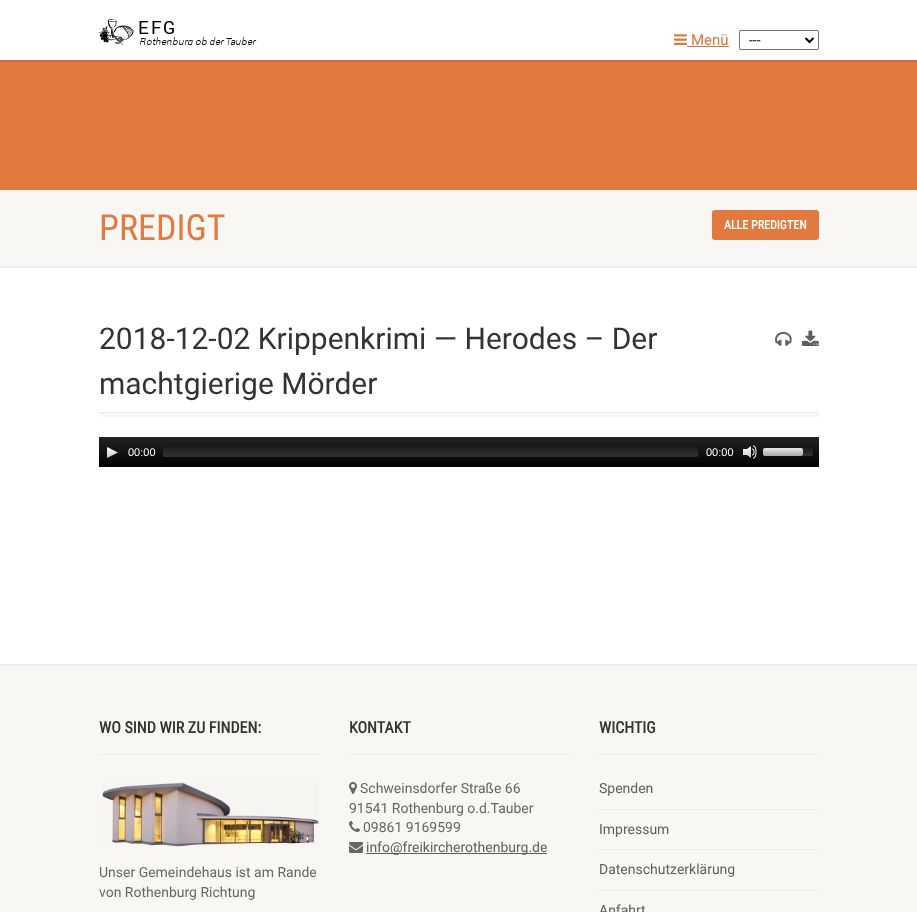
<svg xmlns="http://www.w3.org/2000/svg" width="917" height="912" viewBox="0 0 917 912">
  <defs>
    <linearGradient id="g1" gradientUnits="userSpaceOnUse" x1="459" y1="437" x2="459" y2="467"><stop offset="0" stop-color="rgb(35,35,35)"/><stop offset="1" stop-color="rgb(0,0,0)"/></linearGradient>
    <linearGradient id="g2" gradientUnits="userSpaceOnUse" x1="431" y1="447" x2="431" y2="457"><stop offset="0" stop-color="rgb(30,30,30)" stop-opacity="0.8"/><stop offset="1" stop-color="rgb(60,60,60)" stop-opacity="0.8"/></linearGradient>
    <linearGradient id="g3" gradientUnits="userSpaceOnUse" x1="788" y1="448" x2="788" y2="456"><stop offset="0" stop-color="rgb(30,30,30)" stop-opacity="0.8"/><stop offset="1" stop-color="rgb(60,60,60)" stop-opacity="0.8"/></linearGradient>
    <linearGradient id="g4" gradientUnits="userSpaceOnUse" x1="783" y1="448" x2="783" y2="456"><stop offset="0" stop-color="rgb(255,255,255)" stop-opacity="0.9"/><stop offset="1" stop-color="rgb(200,200,200)" stop-opacity="0.8"/></linearGradient>
  </defs>
  <rect width="100%" height="100%" fill="rgb(255,255,255)"/>
  <rect x="0" y="60" width="917" height="2" fill="rgb(203,110,57)"/>
  <image x="99" y="19" width="158" height="26" href="pic1.png"/>
  <image x="674" y="34" width="13" height="11" href="pic2.png"/>
  <text x="691" y="45" font-family="Roboto" font-size="15" fill="rgb(217,117,61)">Menü</text>
  <rect x="687" y="46" width="42" height="1" fill="rgb(217,117,61)"/>
  <rect x="739.5" y="30.5" width="79" height="19" rx="1.5" fill="none" stroke="rgb(118,118,118)"/>
  <path d="M805.5 38L809.5 42L813.5 38" fill="none" stroke="rgb(0,0,0)" stroke-width="2"/>
  <text x="749" y="45" font-family="Roboto" font-size="14" fill="rgb(0,0,0)">---</text>
  <rect x="0" y="62" width="917" height="128" fill="rgb(226,122,63)"/>
  <rect x="0" y="266" width="917" height="2" fill="rgb(237,237,237)"/>
  <rect x="0" y="190" width="917" height="76" fill="rgb(248,247,243)"/>
  <text x="99" y="240" font-family="Roboto Condensed" font-size="36" fill="rgb(226,122,63)">PREDIGT</text>
  <rect x="712" y="210" width="107" height="30" rx="3" fill="rgb(226,122,63)"/>
  <text x="724" y="229" font-family="Roboto Condensed" font-size="12" font-weight="bold" fill="rgb(255,255,255)">ALLE PREDIGTEN</text>
  <rect x="99" y="412" width="720" height="1" fill="rgb(236,234,228)"/>
  <g font-family="Roboto" font-size="30" fill="rgb(51,51,51)">
    <text>
      <tspan x="99" y="349">2018-12-02 Krippenkrimi — Herodes – Der</tspan>
      <tspan x="99" y="394">machtgierige Mörder</tspan>
    </text>
  </g>
  <image x="775" y="331" width="17" height="15" href="pic3.png"/>
  <image x="802" y="330" width="17" height="16" href="pic4.png"/>
  <rect x="99" y="413" width="720" height="4" fill="rgb(248,247,243)"/>
  <rect x="99" y="437" width="720" height="30" fill="url(#g1)"/>
  <image x="107" y="447" width="11" height="11" href="pic5.png"/>
  <text x="128" y="456" font-family="Liberation Sans" font-size="11" fill="rgb(255,255,255)">00:00</text>
  <rect x="163" y="447" width="535" height="10" rx="2" fill="url(#g2)"/>
  <text x="706" y="456" font-family="Liberation Sans" font-size="11" fill="rgb(255,255,255)">00:00</text>
  <image x="743" y="445" width="14" height="14" href="pic6.png"/>
  <rect x="763" y="448" width="50" height="8" rx="2" fill="url(#g3)"/>
  <rect x="763" y="448" width="40" height="8" rx="2" fill="url(#g4)"/>
  <rect x="0" y="664" width="917" height="2" fill="rgb(237,237,237)"/>
  <rect x="0" y="666" width="917" height="246" fill="rgb(248,247,243)"/>
  <text x="99" y="733" font-family="Roboto Condensed" font-size="16" font-weight="bold" fill="rgb(51,51,51)">WO SIND WIR ZU FINDEN:</text>
  <rect x="99" y="754" width="220" height="1" fill="rgb(236,234,228)"/>
  <image x="102" y="782" width="217" height="65" href="pic7.png"/>
  <g font-family="Roboto" font-size="14" fill="rgb(102,102,102)">
    <text>
      <tspan x="99" y="877">Unser Gemeindehaus ist am Rande</tspan>
      <tspan x="99" y="897">von Rothenburg Richtung</tspan>
    </text>
  </g>
  <text x="349" y="733" font-family="Roboto Condensed" font-size="16" font-weight="bold" fill="rgb(51,51,51)">KONTAKT</text>
  <rect x="349" y="754" width="220" height="1" fill="rgb(236,234,228)"/>
  <image x="349" y="782" width="8" height="12" href="pic8.png"/>
  <g font-family="Roboto" font-size="14" fill="rgb(102,102,102)">
    <text x="360" y="793">Schweinsdorfer Straße 66</text>
    <text x="349" y="813">91541 Rothenburg o.d.Tauber</text>
  </g>
  <image x="349" y="821" width="11" height="11" href="pic9.png"/>
  <text x="363" y="832" font-family="Roboto" font-size="14" fill="rgb(102,102,102)">09861 9169599</text>
  <image x="349" y="842" width="14" height="11" href="pic10.png"/>
  <rect x="366" y="853" width="181" height="1" fill="rgb(94,94,94)"/>
  <text x="366" y="852" font-family="Roboto" font-size="14" fill="rgb(94,94,94)">info@freikircherothenburg.de</text>
  <text x="599" y="733" font-family="Roboto Condensed" font-size="16" font-weight="bold" fill="rgb(51,51,51)">WICHTIG</text>
  <rect x="599" y="754" width="220" height="1" fill="rgb(236,234,228)"/>
  <rect x="599" y="809" width="220" height="1" fill="rgb(236,234,228)"/>
  <text x="599" y="793" font-family="Roboto" font-size="14" fill="rgb(94,94,94)">Spenden</text>
  <rect x="599" y="849" width="220" height="1" fill="rgb(236,234,228)"/>
  <text x="599" y="834" font-family="Roboto" font-size="14" fill="rgb(94,94,94)">Impressum</text>
  <rect x="599" y="890" width="220" height="1" fill="rgb(236,234,228)"/>
  <g font-family="Roboto" font-size="14" fill="rgb(94,94,94)">
    <text x="599" y="874">Datenschutzerklärung</text>
    <text x="599" y="915">Anfahrt</text>
  </g>
</svg>
